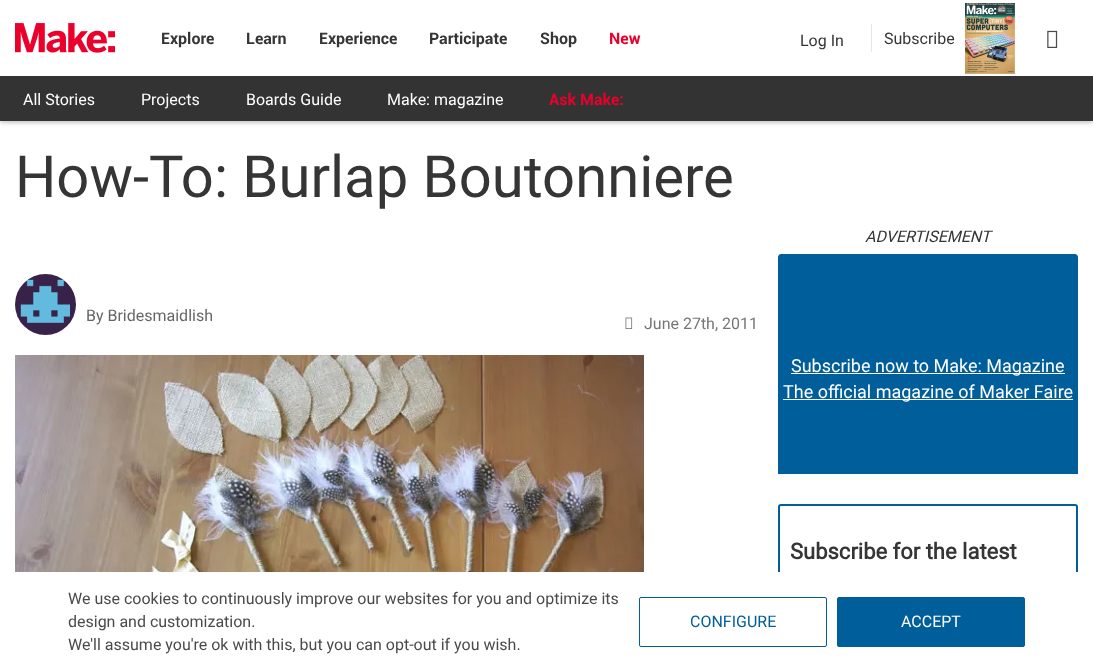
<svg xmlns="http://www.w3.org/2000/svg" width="1093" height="671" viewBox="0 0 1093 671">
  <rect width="100%" height="100%" fill="rgb(255,255,255)"/>
  <rect x="0" y="1" width="1093" height="121" fill="rgba(0,0,0,0.3)" filter="blur(2.5px)"/>
  <rect x="0" y="76" width="1093" height="45" fill="rgb(51,51,51)"/>
  <rect x="0" y="0" width="1093" height="76" fill="rgb(255,255,255)"/>
  <image x="15" y="23" width="100" height="30" href="pic1.png"/>
  <g font-family="'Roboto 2'" font-size="16" font-weight="bold" fill="rgb(53,53,53)">
    <text x="161" y="44">Explore</text>
    <text x="246" y="44">Learn</text>
    <text x="319" y="44">Experience</text>
    <text x="429" y="44">Participate</text>
    <text x="540" y="44">Shop</text>
  </g>
  <text x="609" y="44" font-family="'Roboto 2'" font-size="16" font-weight="bold" fill="rgb(234,0,42)">New</text>
  <text x="800" y="46" font-family="Roboto" font-size="16" fill="rgb(53,53,53)">Log In</text>
  <rect x="871" y="24" width="1" height="28" fill="rgb(230,230,230)"/>
  <text x="884" y="44" font-family="Roboto" font-size="16" fill="rgb(53,53,53)">Subscribe</text>
  <image x="965" y="3" width="50" height="71" href="pic2.png"/>
  <image x="1047" y="30" width="11" height="18" href="pic3.png"/>
  <g font-family="Roboto" font-size="16" fill="rgb(255,255,255)">
    <text x="23" y="105">All Stories</text>
    <text x="141" y="105">Projects</text>
    <text x="246" y="105">Boards Guide</text>
    <text x="387" y="105">Make: magazine</text>
  </g>
  <text x="549" y="105" font-family="'Roboto 2'" font-size="16" font-weight="bold" fill="rgb(234,0,42)">Ask Make:</text>
  <text x="15" y="197" font-family="Roboto" font-size="58" fill="rgb(53,53,53)">How-To: Burlap Boutonniere</text>
  <image x="15" y="274" width="61" height="61" href="pic4.png"/>
  <text x="86" y="321" font-family="Roboto" font-size="16" fill="rgb(102,102,102)">By Bridesmaidlish</text>
  <image x="625" y="317" width="8" height="12" href="pic5.png"/>
  <text x="644" y="329" font-family="Roboto" font-size="16" fill="rgb(118,118,118)">June 27th, 2011</text>
  <image x="15" y="355" width="629" height="217" href="pic6.png"/>
  <text x="865" y="242" font-family="Roboto" font-size="16" font-style="italic" fill="rgb(53,53,53)">ADVERTISEMENT</text>
  <path d="M781 254H1075C1076.5 254 1078 255.5 1078 257V474H778V257C778 255.5 779.5 254 781 254Z" fill="rgb(0,94,154)"/>
  <rect x="791" y="373" width="274" height="1" fill="rgb(255,255,255)"/>
  <text x="791" y="372" font-family="Roboto" font-size="18" fill="rgb(255,255,255)">Subscribe now to Make: Magazine</text>
  <rect x="783" y="399" width="290" height="1" fill="rgb(255,255,255)"/>
  <text x="783" y="398" font-family="Roboto" font-size="18" fill="rgb(255,255,255)">The official magazine of Maker Faire</text>
  <rect x="779" y="505" width="298" height="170" rx="2" fill="none" stroke="rgb(0,94,154)" stroke-width="2"/>
  <text x="790" y="559" font-family="Roboto" font-size="22" font-weight="bold" fill="rgb(53,53,53)">Subscribe for the latest</text>
  <rect x="778" y="572" width="300" height="99" fill="rgb(255,255,255)"/>
  <g font-family="Roboto" font-size="16" fill="rgb(74,74,74)">
    <text>
      <tspan x="68" y="604">We use cookies to continuously improve our websites for you and optimize its</tspan>
      <tspan x="68" y="627">design and customization.</tspan>
      <tspan x="68" y="650">We'll assume you're ok with this, but you can opt-out if you wish.</tspan>
    </text>
  </g>
  <rect x="639.5" y="597.5" width="187" height="49" rx="1.5" fill="none" stroke="rgb(0,94,154)"/>
  <text x="690" y="627" font-family="Roboto" font-size="16" fill="rgb(0,94,154)">CONFIGURE</text>
  <rect x="837.5" y="597.5" width="187" height="49" rx="1.5" fill="rgb(0,94,154)" stroke="rgb(0,94,154)"/>
  <text x="901" y="627" font-family="Roboto" font-size="16" fill="rgb(255,255,255)">ACCEPT</text>
</svg>
